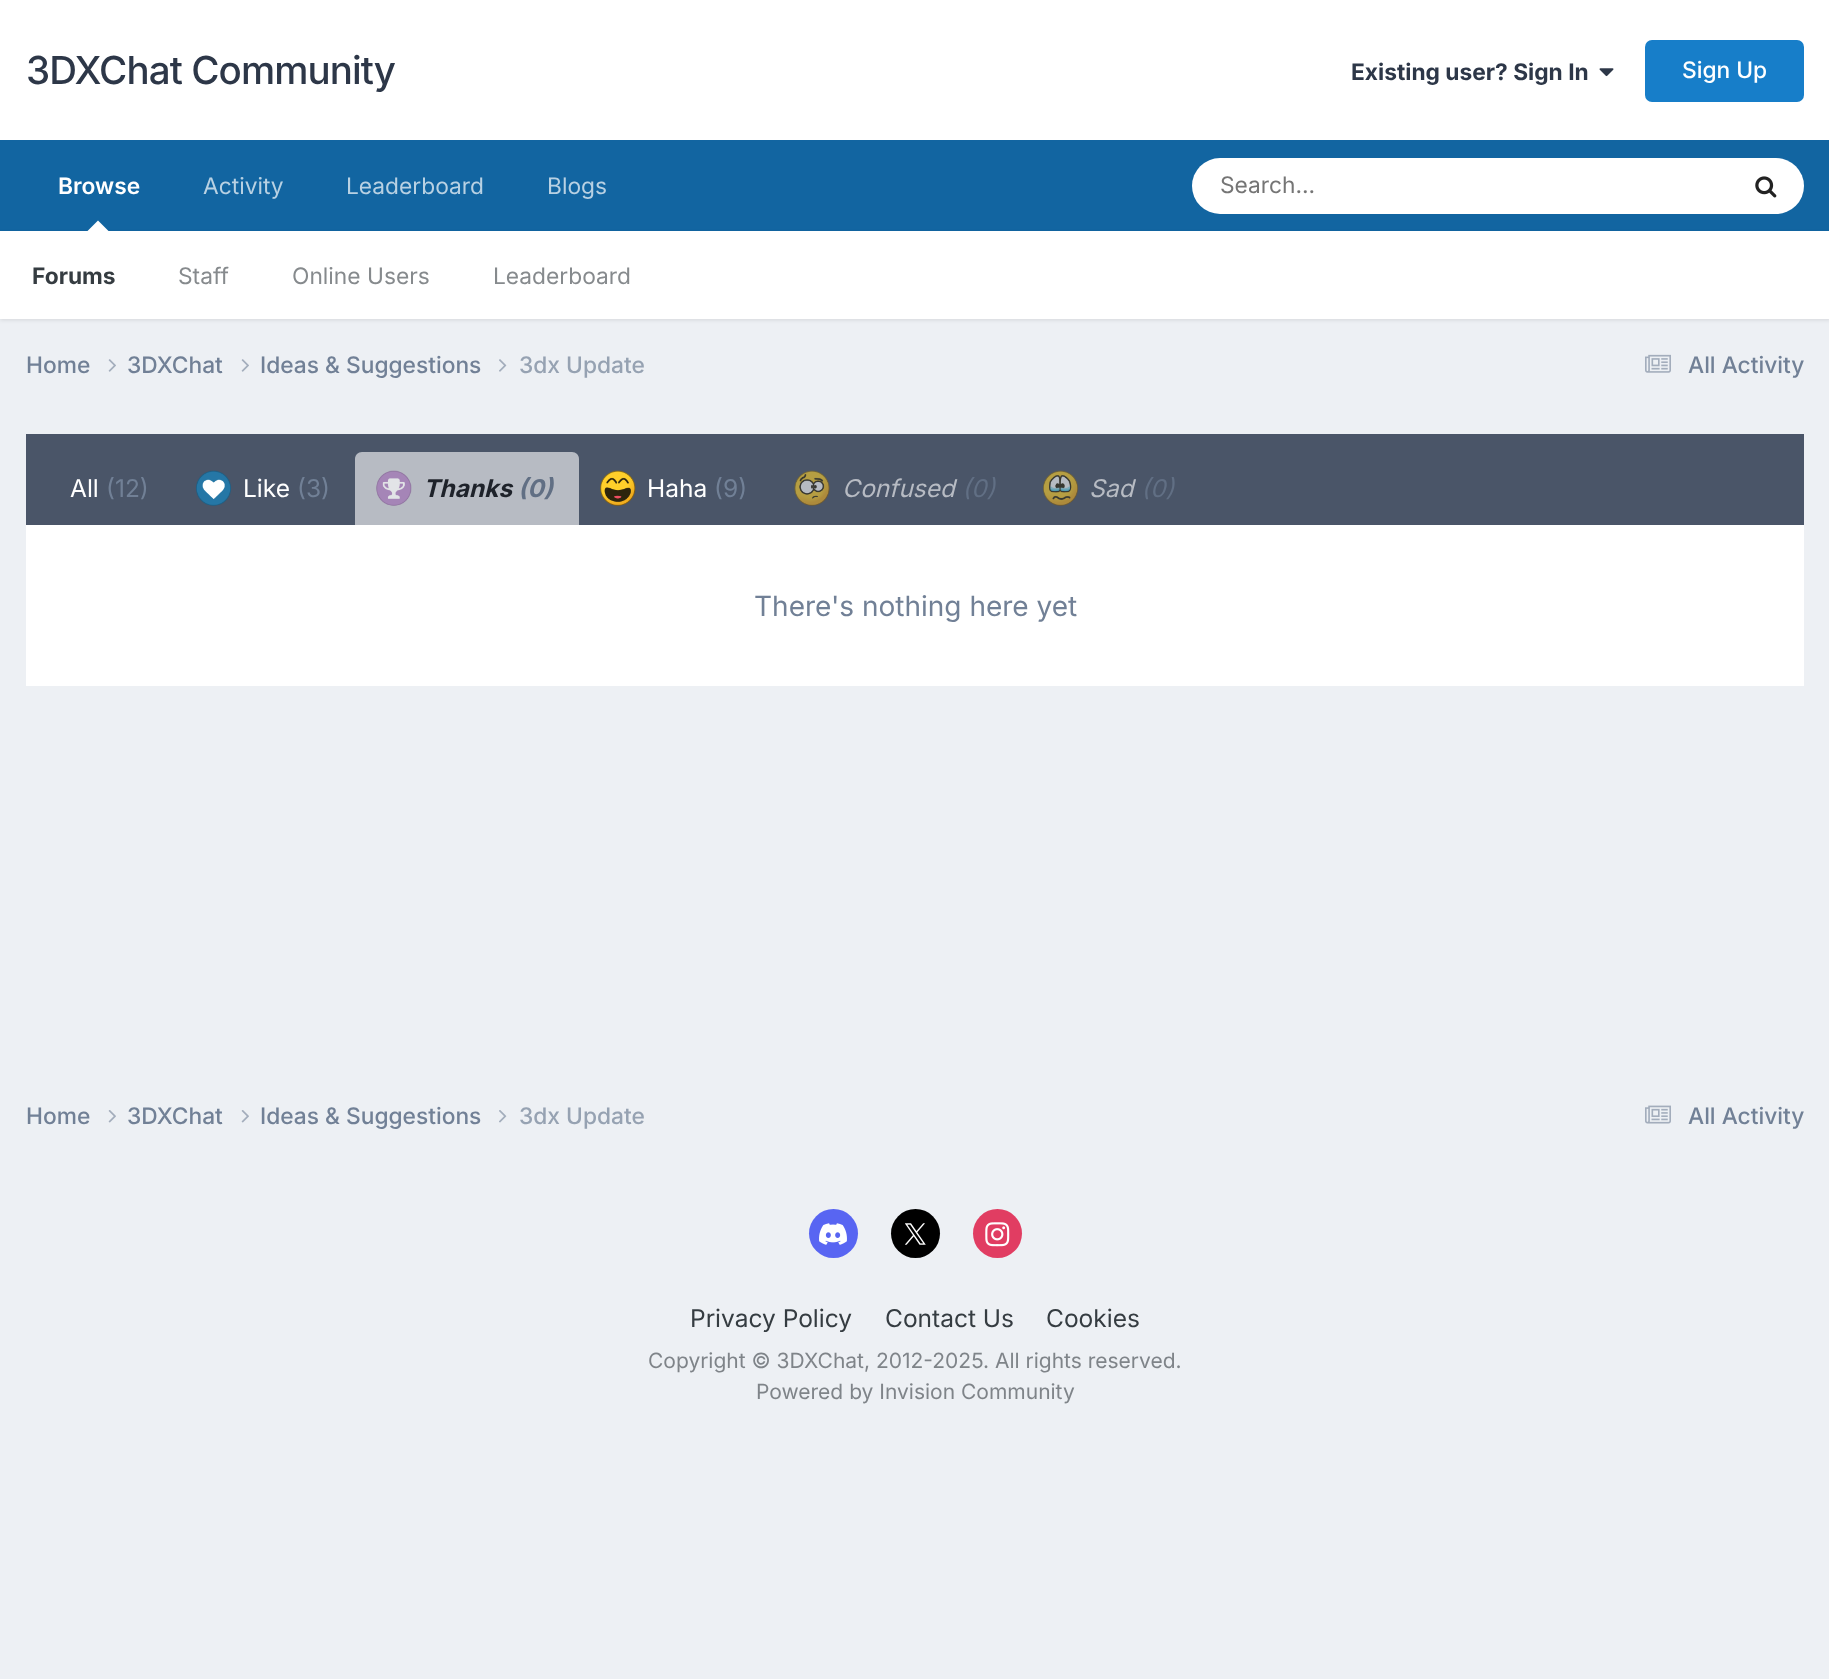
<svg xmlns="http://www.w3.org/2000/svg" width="1829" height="1679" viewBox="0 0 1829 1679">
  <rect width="100%" height="100%" fill="rgb(237,240,244)"/>
  <rect x="0" y="0" width="1829" height="140" fill="rgb(255,255,255)"/>
  <text x="26" y="84" font-family="Inter" font-size="38.5" font-weight="500" letter-spacing="-0.9" fill="rgb(45,55,72)">3DXChat Community</text>
  <text x="1351" y="80" font-family="Inter" font-size="22.75" font-weight="bold" fill="rgb(45,55,72)">Existing user? Sign In</text>
  <image x="1599" y="68" width="15" height="9" href="pic1.png"/>
  <rect x="1645" y="40" width="159" height="62" rx="7" fill="rgb(23,126,201)"/>
  <text x="1682" y="78" font-family="Inter" font-size="22.75" font-weight="500" fill="rgb(255,255,255)">Sign Up</text>
  <rect x="0" y="140" width="1829" height="91" fill="rgb(18,101,161)"/>
  <text x="203" y="194" font-family="Inter" font-size="22.75" fill="rgb(184,209,227)">Activity</text>
  <text x="58" y="194" font-family="Inter" font-size="22.75" font-weight="600" fill="rgb(255,255,255)">Browse</text>
  <rect x="0" y="233" width="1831" height="87" fill="rgba(0,0,0,0.1)" filter="blur(2px)"/>
  <path d="M108.5 231H87.5L98 220.5Z" fill="rgb(255,255,255)"/>
  <rect x="0" y="231" width="1829" height="88" fill="rgb(255,255,255)"/>
  <text x="32" y="284" font-family="Inter" font-size="22.75" font-weight="bold" fill="rgb(53,60,65)">Forums</text>
  <g font-family="Inter" font-size="22.75" fill="rgb(134,138,141)">
    <text x="178" y="284">Staff</text>
    <text x="292" y="284">Online Users</text>
    <text x="493" y="284">Leaderboard</text>
  </g>
  <g font-family="Inter" font-size="22.75" fill="rgb(184,209,227)">
    <text x="346" y="194">Leaderboard</text>
    <text x="547" y="194">Blogs</text>
  </g>
  <rect x="1192" y="158" width="612" height="56" rx="28" fill="rgb(255,255,255)"/>
  <text x="1220" y="193" font-family="Inter" font-size="22.75" fill="rgb(117,117,117)">Search...</text>
  <image x="1755" y="176" width="22" height="22" href="pic2.png"/>
  <text x="26" y="373" font-family="Inter" font-size="22.75" font-weight="500" fill="rgb(113,128,150)">Home</text>
  <image x="108" y="359" width="8" height="13" href="pic3.png"/>
  <text x="127" y="373" font-family="Inter" font-size="22.75" font-weight="500" fill="rgb(113,128,150)">3DXChat</text>
  <image x="241" y="359" width="8" height="13" href="pic3.png"/>
  <text x="260" y="373" font-family="Inter" font-size="22.75" font-weight="500" fill="rgb(113,128,150)">Ideas &amp; Suggestions</text>
  <image x="499" y="359" width="8" height="13" href="pic4.png"/>
  <text x="519" y="373" font-family="Inter" font-size="22.75" font-weight="500" fill="rgb(150,162,178)">3dx Update</text>
  <image x="1645" y="354" width="26" height="19" href="pic5.png"/>
  <text x="1688" y="373" font-family="Inter" font-size="22.75" font-weight="500" fill="rgb(113,128,150)">All Activity</text>
  <rect x="26" y="434" width="1778" height="91" fill="rgb(74,85,104)"/>
  <text x="70" y="497" font-family="Inter" font-size="24.5" fill="rgb(255,255,255)">All</text>
  <text x="106" y="497" font-family="Inter" font-size="24.5" fill="rgb(113,128,150)">(12)</text>
  <image x="196" y="470" width="35" height="36" href="pic6.png"/>
  <text x="243" y="497" font-family="Inter" font-size="24.5" fill="rgb(255,255,255)">Like</text>
  <text x="297" y="497" font-family="Inter" font-size="24.5" fill="rgb(113,128,150)">(3)</text>
  <path d="M362 452H572C576 452 579 455 579 459V525H355V459C355 455 358 452 362 452Z" fill="rgb(183,187,195)"/>
  <image x="376" y="470" width="36" height="36" href="pic7.png"/>
  <text x="423" y="497" font-family="Inter" font-size="24.5" font-weight="bold" font-style="italic" fill="rgb(30,34,42)">Thanks</text>
  <text x="518" y="497" font-family="Inter" font-size="24.5" font-weight="bold" font-style="italic" fill="rgb(97,111,132)">(0)</text>
  <image x="600" y="470" width="36" height="36" href="pic8.png"/>
  <text x="647" y="497" font-family="Inter" font-size="24.5" fill="rgb(255,255,255)">Haha</text>
  <text x="714" y="497" font-family="Inter" font-size="24.5" fill="rgb(113,128,150)">(9)</text>
  <image x="794" y="470" width="36" height="36" href="pic9.png"/>
  <text x="842" y="497" font-family="Inter" font-size="24.5" font-style="italic" fill="rgb(183,187,195)">Confused</text>
  <text x="962" y="497" font-family="Inter" font-size="24.5" font-style="italic" fill="rgb(97,111,132)">(0)</text>
  <image x="1043" y="470" width="35" height="36" href="pic10.png"/>
  <text x="1089" y="497" font-family="Inter" font-size="24.5" font-style="italic" fill="rgb(183,187,195)">Sad</text>
  <text x="1141" y="497" font-family="Inter" font-size="24.5" font-style="italic" fill="rgb(97,111,132)">(0)</text>
  <rect x="26" y="525" width="1778" height="161" fill="rgb(255,255,255)"/>
  <text x="754" y="616" font-family="Inter" font-size="28" fill="rgb(113,128,150)">There's nothing here yet</text>
  <text x="26" y="1124" font-family="Inter" font-size="22.75" font-weight="500" fill="rgb(113,128,150)">Home</text>
  <image x="108" y="1110" width="8" height="13" href="pic11.png"/>
  <text x="127" y="1124" font-family="Inter" font-size="22.75" font-weight="500" fill="rgb(113,128,150)">3DXChat</text>
  <image x="241" y="1110" width="8" height="13" href="pic11.png"/>
  <text x="260" y="1124" font-family="Inter" font-size="22.75" font-weight="500" fill="rgb(113,128,150)">Ideas &amp; Suggestions</text>
  <image x="499" y="1110" width="8" height="13" href="pic12.png"/>
  <text x="519" y="1124" font-family="Inter" font-size="22.75" font-weight="500" fill="rgb(150,162,178)">3dx Update</text>
  <image x="1645" y="1105" width="26" height="19" href="pic13.png"/>
  <text x="1688" y="1124" font-family="Inter" font-size="22.75" font-weight="500" fill="rgb(113,128,150)">All Activity</text>
  <circle cx="833.5" cy="1233.5" r="24.5" fill="rgb(88,101,242)"/>
  <image x="819" y="1223" width="28" height="22" href="pic14.png"/>
  <circle cx="915.5" cy="1233.5" r="24.5" fill="rgb(0,0,0)"/>
  <image x="905" y="1223" width="21" height="22" href="pic15.png"/>
  <circle cx="997.5" cy="1233.5" r="24.5" fill="rgb(225,61,98)"/>
  <image x="985" y="1222" width="25" height="25" href="pic16.png"/>
  <g font-family="Inter" font-size="24.5" fill="rgb(53,60,65)">
    <text x="690" y="1327">Privacy Policy</text>
    <text x="885" y="1327">Contact Us</text>
    <text x="1046" y="1327">Cookies</text>
  </g>
  <g font-family="Inter" font-size="21" fill="rgb(127,132,137)">
    <text x="648" y="1368">Copyright © 3DXChat, 2012-2025. All rights reserved.</text>
    <text x="756" y="1399">Powered by Invision Community</text>
  </g>
</svg>
